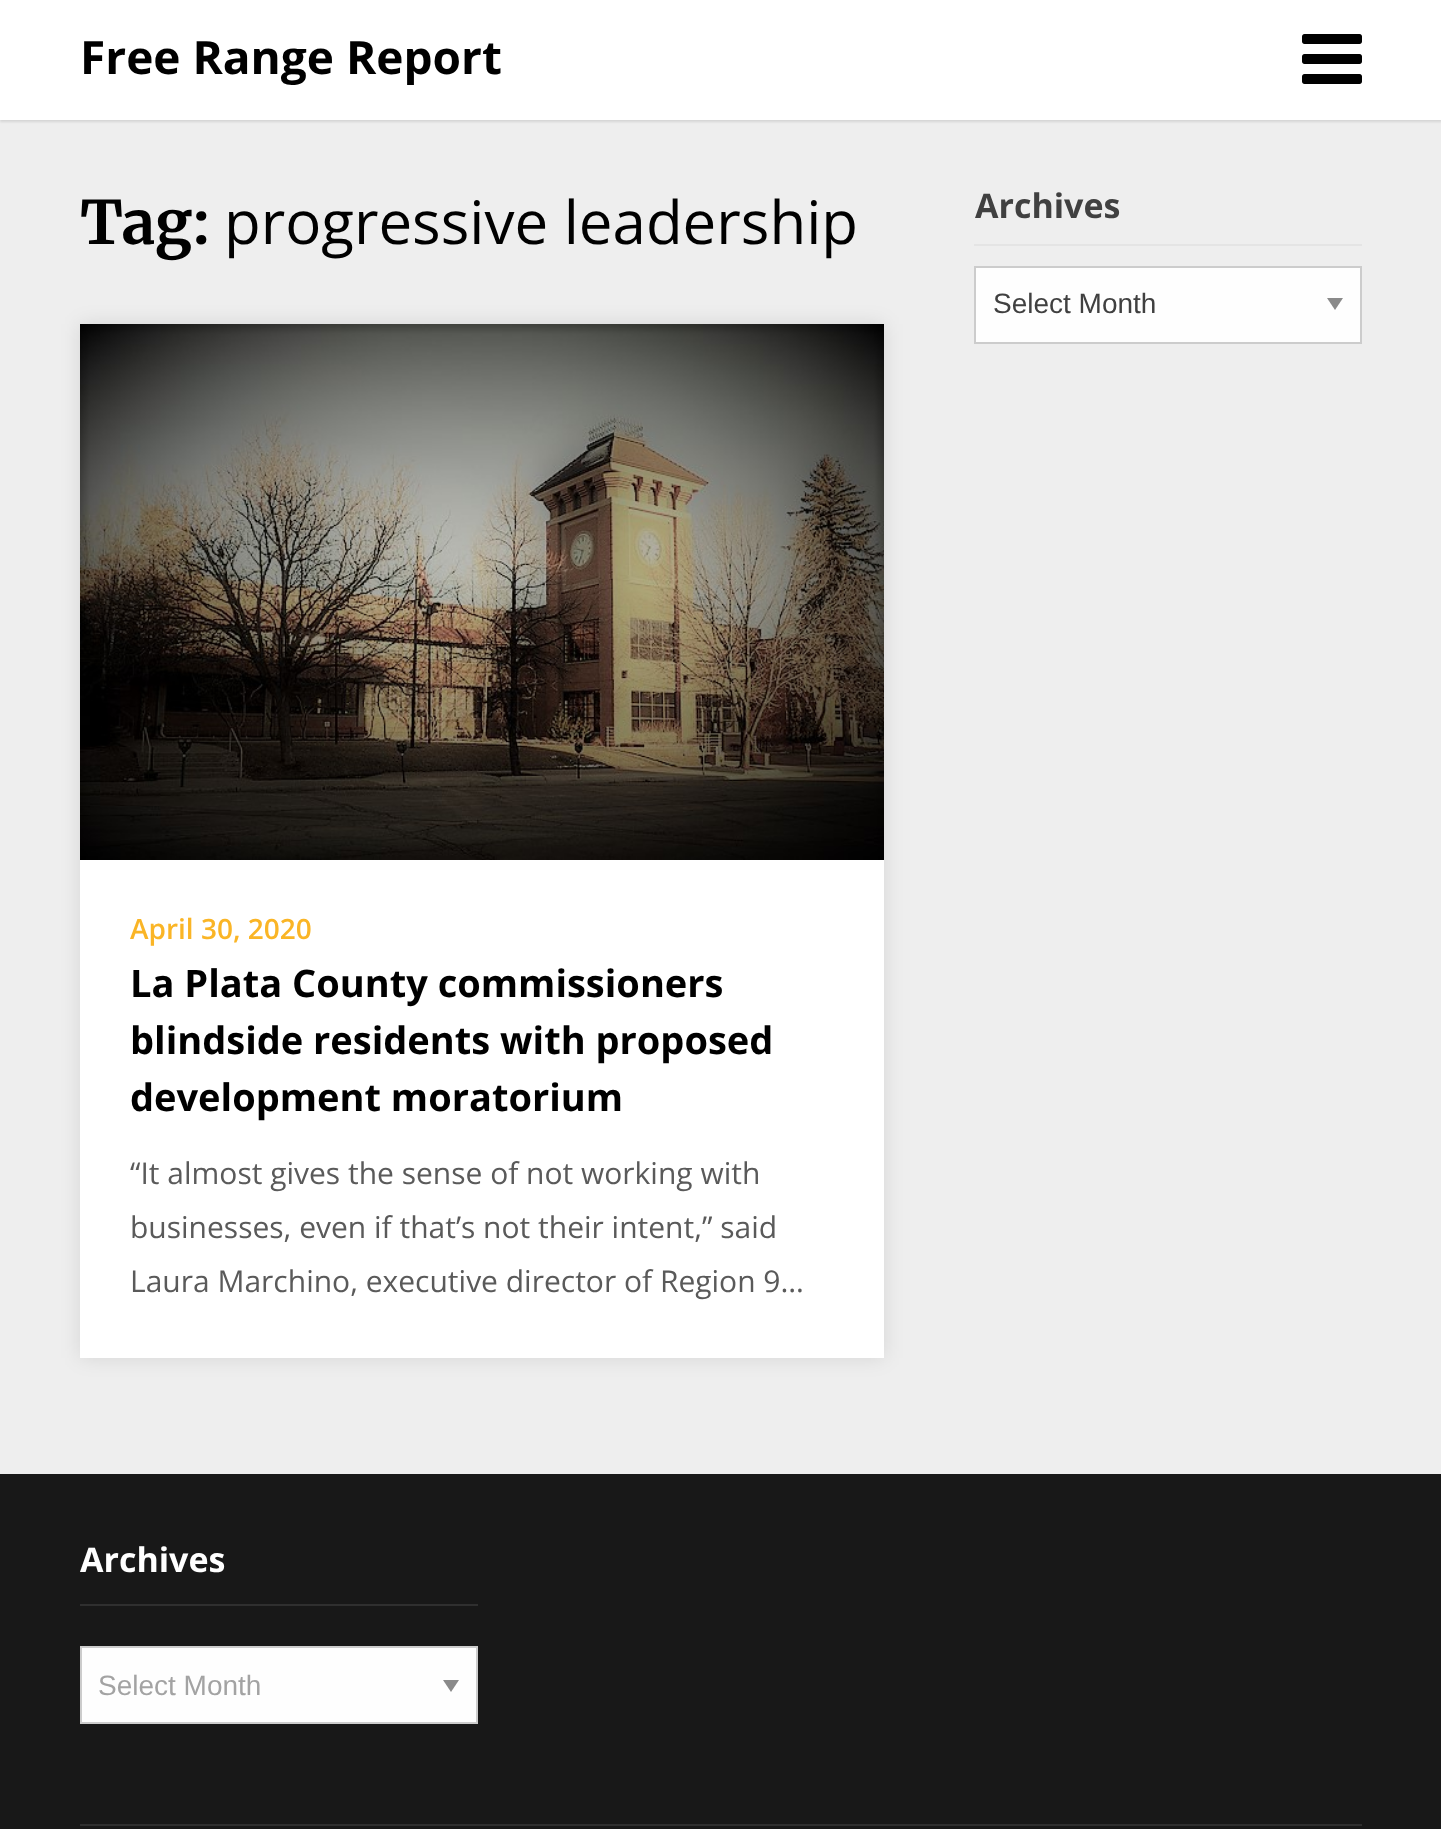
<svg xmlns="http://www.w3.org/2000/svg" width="1441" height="1829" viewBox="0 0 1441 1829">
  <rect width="100%" height="100%" fill="rgb(238,238,238)"/>
  <rect x="0" y="2" width="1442" height="120" fill="rgba(0,0,0,0.1)" filter="blur(1px)"/>
  <rect x="0" y="0" width="1441" height="120" fill="rgb(255,255,255)"/>
  <text x="80" y="74" font-family="Open Sans" font-size="46" font-weight="bold" fill="rgb(0,0,0)">Free Range Report</text>
  <image x="1302" y="34" width="60" height="50" href="pic1.png"/>
  <text x="80" y="244" font-family="Merriweather" font-size="60" font-weight="bold" fill="rgb(0,0,0)">Tag:</text>
  <text x="224" y="244" font-family="Open Sans" font-size="60" fill="rgb(0,0,0)">progressive leadership</text>
  <rect x="80" y="324" width="804" height="1034" fill="rgba(0,0,0,0.1)" filter="blur(10px)"/>
  <rect x="80" y="860" width="804" height="498" fill="rgb(255,255,255)"/>
  <image x="80" y="324" width="804" height="536" href="pic2.png"/>
  <text x="130" y="939" font-family="Open Sans" font-size="28" font-weight="600" fill="rgb(250,181,38)">April 30, 2020</text>
  <g font-family="Open Sans" font-size="38" font-weight="bold" fill="rgb(0,0,0)">
    <text>
      <tspan x="130" y="997">La Plata County commissioners</tspan>
      <tspan x="130" y="1054">blindside residents with proposed</tspan>
      <tspan x="130" y="1111">development moratorium</tspan>
    </text>
  </g>
  <g font-family="Open Sans" font-size="30" fill="rgb(90,90,90)">
    <text>
      <tspan x="130" y="1184">“It almost gives the sense of not working with</tspan>
      <tspan x="130" y="1238">businesses, even if that’s not their intent,” said</tspan>
      <tspan x="130" y="1292">Laura Marchino, executive director of Region 9…</tspan>
    </text>
  </g>
  <rect x="974" y="244" width="388" height="2" fill="rgb(228,228,228)"/>
  <text x="975" y="218" font-family="Open Sans" font-size="34" font-weight="bold" fill="rgb(64,64,64)">Archives</text>
  <rect x="976" y="268" width="384" height="74" fill="rgb(254,254,254)"/>
  <path d="M1327 298H1343L1335 310Z" fill="rgb(138,138,138)"/>
  <rect x="975" y="267" width="386" height="76" fill="none" stroke="rgb(204,204,204)" stroke-width="2"/>
  <text x="993" y="313" font-family="Liberation Sans" font-size="28" fill="rgb(64,64,64)">Select Month</text>
  <rect x="0" y="1474" width="1441" height="355" fill="rgb(24,24,24)"/>
  <rect x="80" y="1824" width="1282" height="2" fill="rgb(47,47,47)"/>
  <rect x="80" y="1604" width="398" height="2" fill="rgb(47,47,47)"/>
  <text x="80" y="1572" font-family="Open Sans" font-size="34" font-weight="bold" fill="rgb(255,255,255)">Archives</text>
  <rect x="82" y="1648" width="394" height="74" fill="rgb(254,254,254)"/>
  <path d="M443 1680H459L451 1692Z" fill="rgb(138,138,138)"/>
  <rect x="81" y="1647" width="396" height="76" fill="none" stroke="rgb(204,204,204)" stroke-width="2"/>
  <text x="98" y="1695" font-family="Liberation Sans" font-size="28" fill="rgb(163,163,163)">Select Month</text>
</svg>
